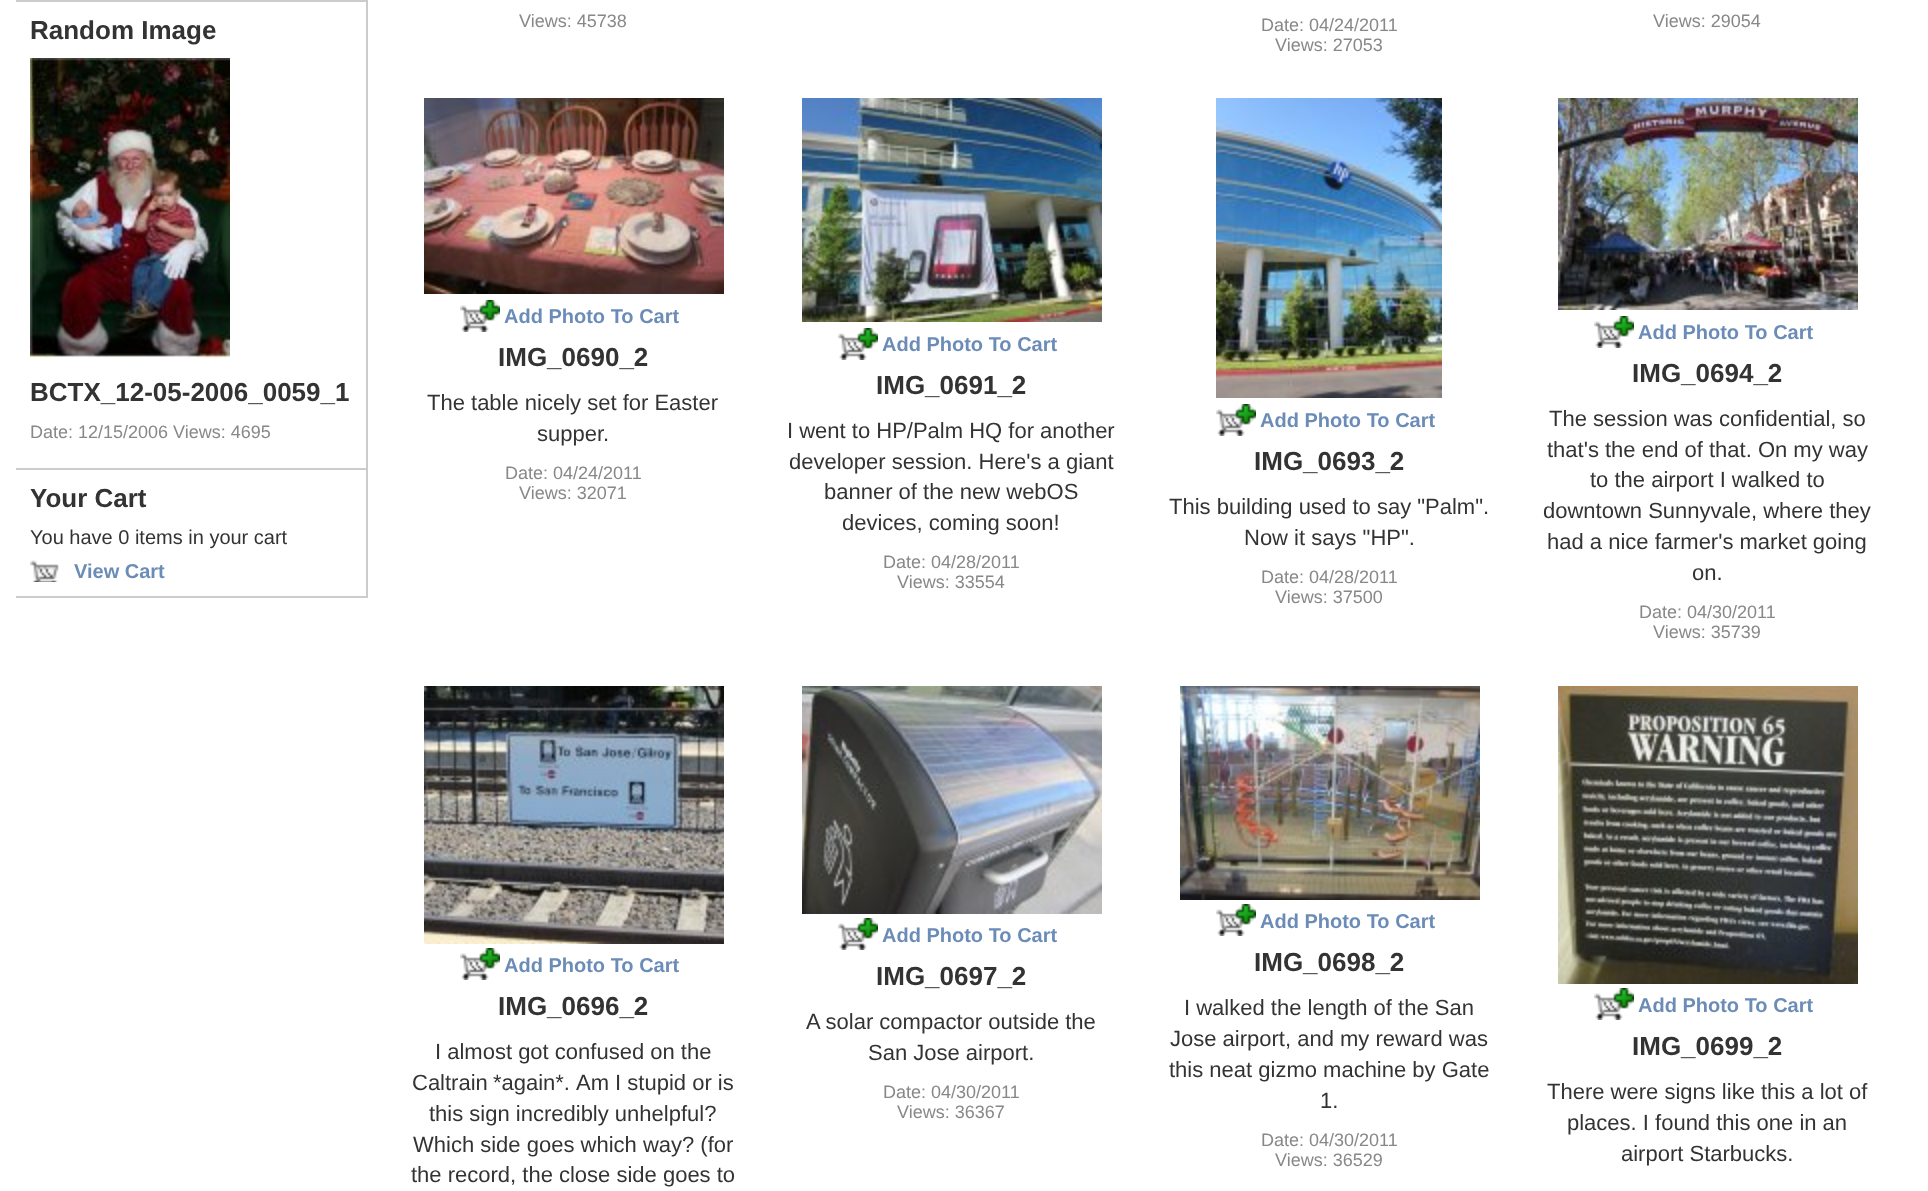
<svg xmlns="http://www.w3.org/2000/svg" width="1928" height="1191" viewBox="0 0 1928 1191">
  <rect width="100%" height="100%" fill="rgb(255,255,255)"/>
  <rect x="366" y="0" width="2" height="598" fill="rgb(204,204,204)"/>
  <rect x="16" y="0" width="350" height="2" fill="rgb(204,204,204)"/>
  <rect x="16" y="468" width="350" height="2" fill="rgb(204,204,204)"/>
  <text x="30" y="39" font-family="Liberation Sans" font-size="26" font-weight="bold" fill="rgb(51,51,51)">Random Image</text>
  <image x="30" y="58" width="200" height="300" href="pic1.png"/>
  <text x="30" y="401" font-family="Liberation Sans" font-size="26" font-weight="bold" fill="rgb(51,51,51)">BCTX_12-05-2006_0059_1</text>
  <text x="30" y="438" font-family="Liberation Sans" font-size="18" fill="rgb(136,136,136)">Date: 12/15/2006 Views: 4695</text>
  <rect x="16" y="596" width="350" height="2" fill="rgb(204,204,204)"/>
  <text x="30" y="507" font-family="Liberation Sans" font-size="26" font-weight="bold" fill="rgb(51,51,51)">Your Cart</text>
  <text x="30" y="544" font-family="Liberation Sans" font-size="20" fill="rgb(51,51,51)">You have 0 items in your cart</text>
  <image x="30" y="560" width="29" height="22" href="pic2.png"/>
  <text x="74" y="578" font-family="Liberation Sans" font-size="20" font-weight="bold" fill="rgb(107,140,183)">View Cart</text>
  <g font-family="Liberation Sans" font-size="18" fill="rgb(136,136,136)">
    <text x="519" y="27">Views: 45738</text>
    <text x="1261" y="31">Date: 04/24/2011</text>
    <text x="1275" y="51">Views: 27053</text>
    <text x="1653" y="27">Views: 29054</text>
  </g>
  <image x="424" y="98" width="300" height="196" href="pic3.png"/>
  <image x="460" y="300" width="40" height="32" href="pic4.png"/>
  <text x="504" y="323" font-family="Liberation Sans" font-size="20" font-weight="bold" fill="rgb(107,140,183)">Add Photo To Cart</text>
  <text x="498" y="366" font-family="Liberation Sans" font-size="26" font-weight="bold" fill="rgb(51,51,51)">IMG_0690_2</text>
  <g font-family="Liberation Sans" font-size="22" fill="rgb(51,51,51)">
    <text x="427" y="410">The table nicely set for Easter</text>
    <text x="537" y="441">supper.</text>
  </g>
  <g font-family="Liberation Sans" font-size="18" fill="rgb(136,136,136)">
    <text x="505" y="479">Date: 04/24/2011</text>
    <text x="519" y="499">Views: 32071</text>
  </g>
  <image x="802" y="98" width="300" height="224" href="pic5.png"/>
  <image x="838" y="328" width="40" height="32" href="pic4.png"/>
  <text x="882" y="351" font-family="Liberation Sans" font-size="20" font-weight="bold" fill="rgb(107,140,183)">Add Photo To Cart</text>
  <text x="876" y="394" font-family="Liberation Sans" font-size="26" font-weight="bold" fill="rgb(51,51,51)">IMG_0691_2</text>
  <g font-family="Liberation Sans" font-size="22" fill="rgb(51,51,51)">
    <text x="787" y="438">I went to HP/Palm HQ for another</text>
    <text x="789" y="469">developer session. Here's a giant</text>
    <text x="824" y="499">banner of the new webOS</text>
    <text x="842" y="530">devices, coming soon!</text>
  </g>
  <g font-family="Liberation Sans" font-size="18" fill="rgb(136,136,136)">
    <text x="883" y="568">Date: 04/28/2011</text>
    <text x="897" y="588">Views: 33554</text>
  </g>
  <image x="1216" y="98" width="226" height="300" href="pic6.png"/>
  <image x="1216" y="404" width="40" height="32" href="pic4.png"/>
  <text x="1260" y="427" font-family="Liberation Sans" font-size="20" font-weight="bold" fill="rgb(107,140,183)">Add Photo To Cart</text>
  <text x="1254" y="470" font-family="Liberation Sans" font-size="26" font-weight="bold" fill="rgb(51,51,51)">IMG_0693_2</text>
  <g font-family="Liberation Sans" font-size="22" fill="rgb(51,51,51)">
    <text x="1169" y="514">This building used to say "Palm".</text>
    <text x="1244" y="545">Now it says "HP".</text>
  </g>
  <g font-family="Liberation Sans" font-size="18" fill="rgb(136,136,136)">
    <text x="1261" y="583">Date: 04/28/2011</text>
    <text x="1275" y="603">Views: 37500</text>
  </g>
  <image x="1558" y="98" width="300" height="212" href="pic7.png"/>
  <image x="1594" y="316" width="40" height="32" href="pic4.png"/>
  <text x="1638" y="339" font-family="Liberation Sans" font-size="20" font-weight="bold" fill="rgb(107,140,183)">Add Photo To Cart</text>
  <text x="1632" y="382" font-family="Liberation Sans" font-size="26" font-weight="bold" fill="rgb(51,51,51)">IMG_0694_2</text>
  <g font-family="Liberation Sans" font-size="22" fill="rgb(51,51,51)">
    <text x="1549" y="426">The session was confidential, so</text>
    <text x="1547" y="457">that's the end of that. On my way</text>
    <text x="1590" y="487">to the airport I walked to</text>
    <text x="1543" y="518">downtown Sunnyvale, where they</text>
    <text x="1547" y="549">had a nice farmer's market going</text>
    <text x="1692" y="580">on.</text>
  </g>
  <g font-family="Liberation Sans" font-size="18" fill="rgb(136,136,136)">
    <text x="1639" y="618">Date: 04/30/2011</text>
    <text x="1653" y="638">Views: 35739</text>
  </g>
  <image x="424" y="686" width="300" height="258" href="pic8.png"/>
  <image x="460" y="948" width="40" height="32" href="pic4.png"/>
  <text x="504" y="972" font-family="Liberation Sans" font-size="20" font-weight="bold" fill="rgb(107,140,183)">Add Photo To Cart</text>
  <text x="498" y="1015" font-family="Liberation Sans" font-size="26" font-weight="bold" fill="rgb(51,51,51)">IMG_0696_2</text>
  <g font-family="Liberation Sans" font-size="22" fill="rgb(51,51,51)">
    <text x="435" y="1059">I almost got confused on the</text>
    <text x="412" y="1090" word-spacing="-1">Caltrain *again*.</text>
    <text x="576" y="1090">Am I stupid or is</text>
    <text x="429" y="1121">this sign incredibly unhelpful?</text>
    <text x="413" y="1152">Which side goes which way? (for</text>
    <text x="411" y="1182">the record, the close side goes to</text>
  </g>
  <image x="802" y="686" width="300" height="228" href="pic9.png"/>
  <image x="838" y="918" width="40" height="32" href="pic4.png"/>
  <text x="882" y="942" font-family="Liberation Sans" font-size="20" font-weight="bold" fill="rgb(107,140,183)">Add Photo To Cart</text>
  <text x="876" y="985" font-family="Liberation Sans" font-size="26" font-weight="bold" fill="rgb(51,51,51)">IMG_0697_2</text>
  <g font-family="Liberation Sans" font-size="22" fill="rgb(51,51,51)">
    <text x="806" y="1029">A solar compactor outside the</text>
    <text x="868" y="1060">San Jose airport.</text>
  </g>
  <g font-family="Liberation Sans" font-size="18" fill="rgb(136,136,136)">
    <text x="883" y="1098">Date: 04/30/2011</text>
    <text x="897" y="1118">Views: 36367</text>
  </g>
  <image x="1180" y="686" width="300" height="214" href="pic10.png"/>
  <image x="1216" y="904" width="40" height="32" href="pic4.png"/>
  <text x="1260" y="928" font-family="Liberation Sans" font-size="20" font-weight="bold" fill="rgb(107,140,183)">Add Photo To Cart</text>
  <text x="1254" y="971" font-family="Liberation Sans" font-size="26" font-weight="bold" fill="rgb(51,51,51)">IMG_0698_2</text>
  <g font-family="Liberation Sans" font-size="22" fill="rgb(51,51,51)">
    <text x="1184" y="1015">I walked the length of the San</text>
    <text x="1170" y="1046">Jose airport, and my reward was</text>
    <text x="1169" y="1077">this neat gizmo machine by Gate</text>
    <text x="1320" y="1108">1.</text>
  </g>
  <g font-family="Liberation Sans" font-size="18" fill="rgb(136,136,136)">
    <text x="1261" y="1146">Date: 04/30/2011</text>
    <text x="1275" y="1166">Views: 36529</text>
  </g>
  <image x="1558" y="686" width="300" height="298" href="pic11.png"/>
  <image x="1594" y="988" width="40" height="32" href="pic4.png"/>
  <text x="1638" y="1012" font-family="Liberation Sans" font-size="20" font-weight="bold" fill="rgb(107,140,183)">Add Photo To Cart</text>
  <text x="1632" y="1055" font-family="Liberation Sans" font-size="26" font-weight="bold" fill="rgb(51,51,51)">IMG_0699_2</text>
  <g font-family="Liberation Sans" font-size="22" fill="rgb(51,51,51)">
    <text x="1547" y="1099">There were signs like this a lot of</text>
    <text x="1567" y="1130">places. I found this one in an</text>
    <text x="1621" y="1161">airport Starbucks.</text>
  </g>
</svg>
